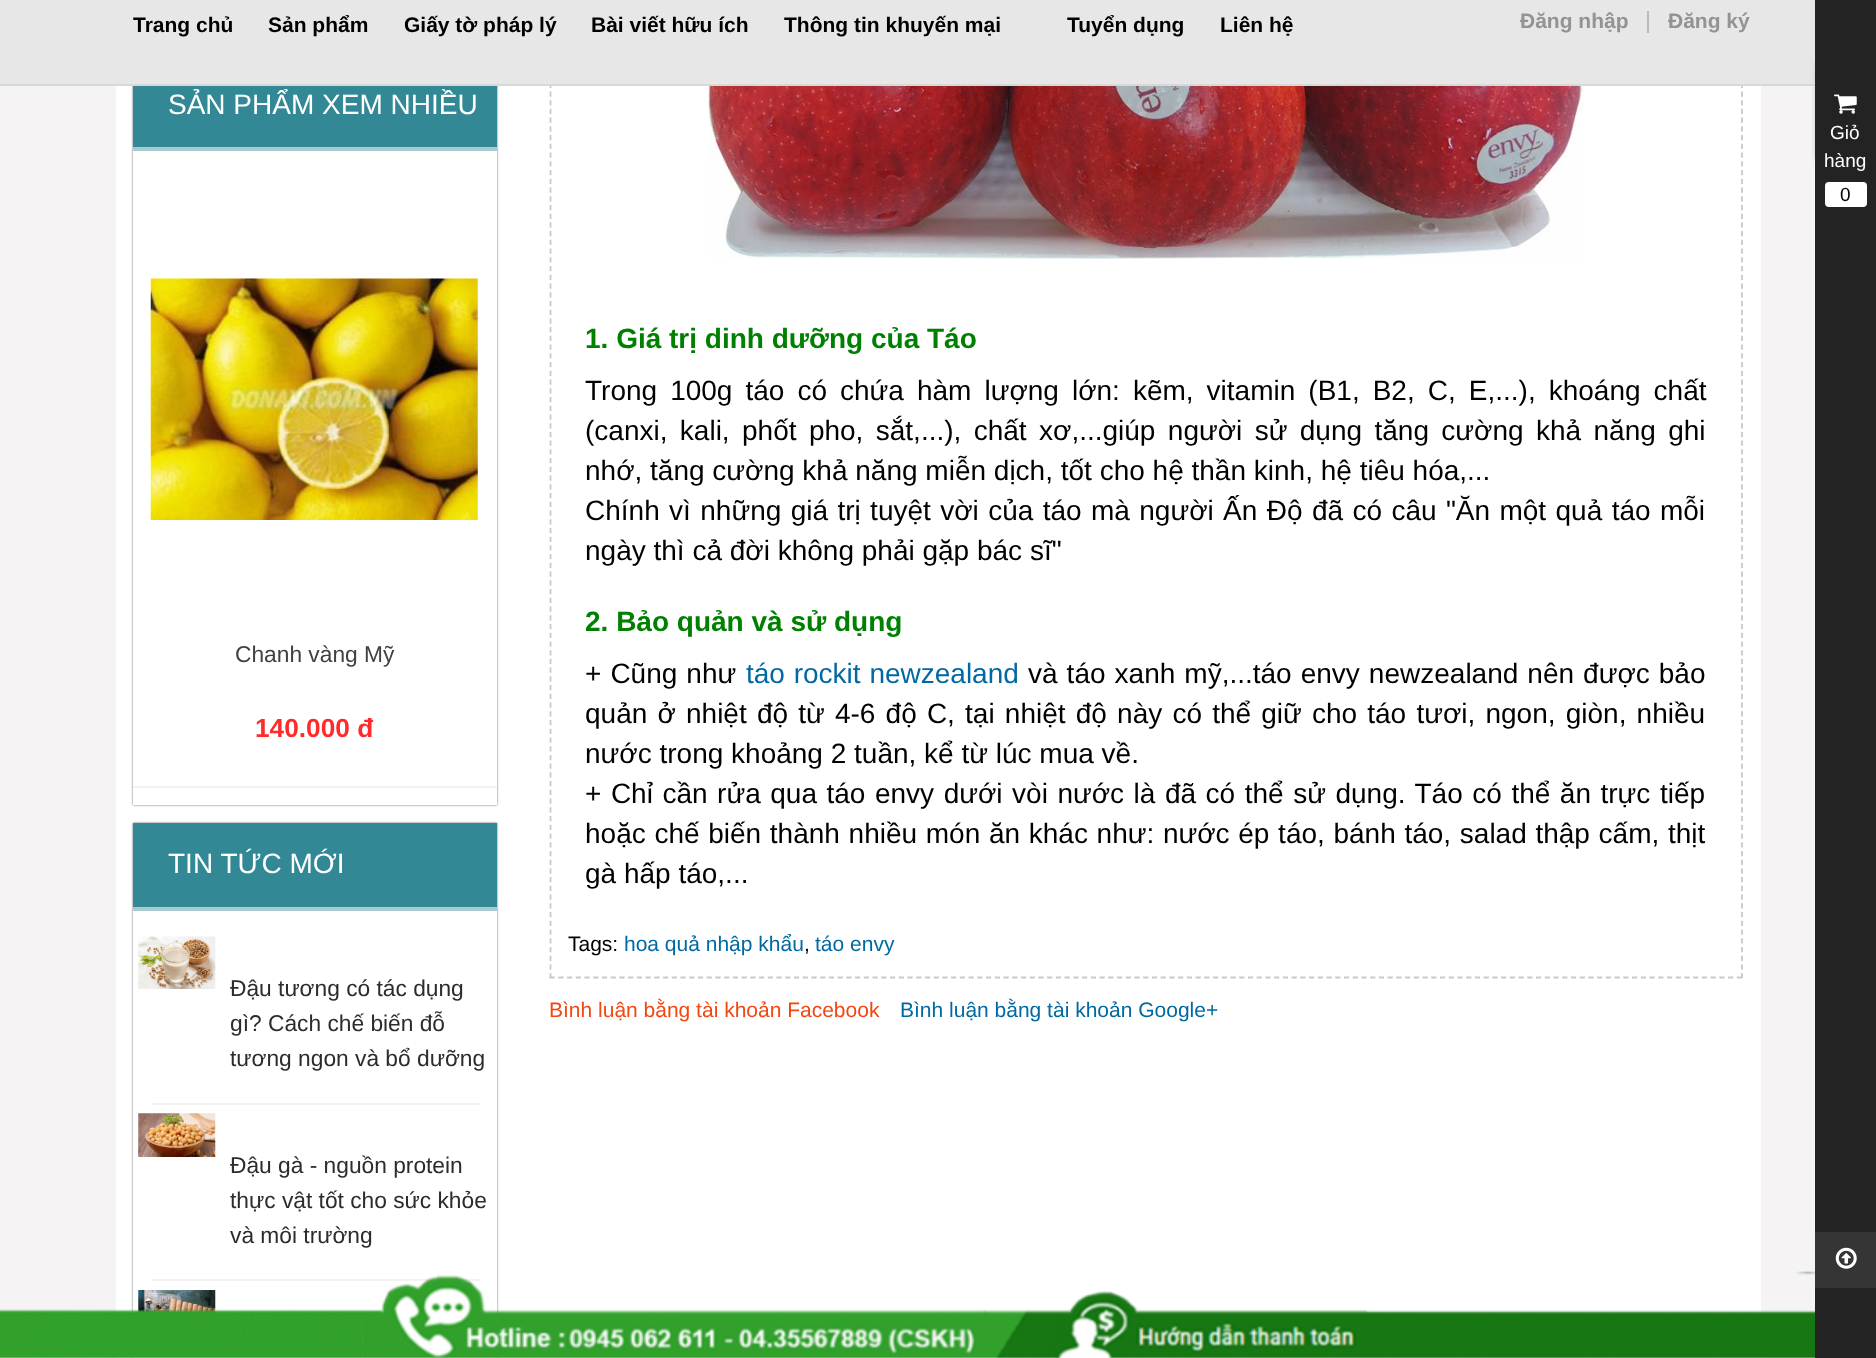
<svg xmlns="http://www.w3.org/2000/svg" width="1876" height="1358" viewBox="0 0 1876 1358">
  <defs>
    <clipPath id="clip1"><path d="M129 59H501V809H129ZM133 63H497V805H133Z" clip-rule="evenodd"/></clipPath>
    <clipPath id="clip2"><path d="M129 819H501V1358H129ZM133 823H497V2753H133Z" clip-rule="evenodd"/></clipPath>
  </defs>
  <rect width="100%" height="100%" fill="rgb(245,243,244)"/>
  <rect x="116" y="86" width="1645" height="1272" fill="rgb(255,255,255)"/>
  <g clip-path="url(#clip1)">
    <rect x="133" y="63" width="364" height="742" fill="rgb(102,102,102)" filter="blur(1px)"/>
  </g>
  <path d="M1742-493.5V978" fill="none" stroke="rgb(201,201,201)" stroke-width="1.8" stroke-dasharray="5.25 3.48"/>
  <path d="M549.5 977.5H1743" fill="none" stroke="rgb(201,201,201)" stroke-width="1.8" stroke-dasharray="5.25 3.48"/>
  <path d="M550.5-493.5V978" fill="none" stroke="rgb(201,201,201)" stroke-width="1.8" stroke-dasharray="5.25 3.48"/>
  <rect x="0" y="0" width="1815" height="84" fill="rgb(231,231,231)"/>
  <rect x="0" y="84" width="1815" height="2" fill="rgb(216,216,216)"/>
  <g font-family="Liberation Sans" font-size="21" font-weight="bold" fill="rgb(0,0,0)">
    <text x="133" y="32">Trang chủ</text>
    <text x="268" y="32">Sản phẩm</text>
    <text x="404" y="32">Giấy tờ pháp lý</text>
    <text x="591" y="32">Bài viết hữu ích</text>
    <text x="784" y="32">Thông tin khuyến mại</text>
    <text x="1067" y="32">Tuyển dụng</text>
    <text x="1220" y="32">Liên hệ</text>
  </g>
  <text x="1520" y="28" font-family="Liberation Sans" font-size="21" font-weight="bold" fill="rgb(147,147,147)">Đăng nhập</text>
  <rect x="1647" y="11" width="2" height="22" fill="rgb(187,187,187)"/>
  <text x="1668" y="28" font-family="Liberation Sans" font-size="21" font-weight="bold" fill="rgb(147,147,147)">Đăng ký</text>
  <rect x="133" y="86" width="364" height="61" fill="rgb(50,137,149)"/>
  <rect x="133" y="147" width="364" height="4" fill="rgb(166,204,209)"/>
  <text x="168" y="114" font-family="Liberation Sans" font-size="28" fill="rgb(255,255,255)">SẢN PHẨM XEM NHIỀU</text>
  <rect x="133" y="786" width="364" height="2" fill="rgb(241,241,241)"/>
  <image x="150" y="278" width="328" height="242" href="pic1.png"/>
  <text x="235" y="662" font-family="Liberation Sans" font-size="22.75" fill="rgb(65,65,65)">Chanh vàng Mỹ</text>
  <text x="255" y="737" font-family="Liberation Sans" font-size="26.25" font-weight="bold" fill="rgb(255,43,43)">140.000 đ</text>
  <g clip-path="url(#clip2)">
    <rect x="133" y="823" width="364" height="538" fill="rgb(102,102,102)" filter="blur(1px)"/>
  </g>
  <rect x="133" y="823" width="364" height="84" fill="rgb(50,137,149)"/>
  <rect x="133" y="907" width="364" height="4" fill="rgb(166,204,209)"/>
  <text x="168" y="873" font-family="Liberation Sans" font-size="28" fill="rgb(255,255,255)">TIN TỨC MỚI</text>
  <rect x="151" y="1103" width="329" height="2" fill="rgb(243,243,243)"/>
  <image x="138" y="936" width="78" height="53" href="pic2.png"/>
  <g font-family="Liberation Sans" font-size="22.75" fill="rgb(44,44,44)">
    <text>
      <tspan x="230" y="996">Đậu tương có tác dụng</tspan>
      <tspan x="230" y="1031">gì? Cách chế biến đỗ</tspan>
      <tspan x="230" y="1066">tương ngon và bổ dưỡng</tspan>
    </text>
  </g>
  <rect x="151" y="1279" width="329" height="2" fill="rgb(243,243,243)"/>
  <image x="138" y="1113" width="78" height="44" href="pic3.png"/>
  <g font-family="Liberation Sans" font-size="22.75" fill="rgb(44,44,44)">
    <text>
      <tspan x="230" y="1173">Đậu gà - nguồn protein</tspan>
      <tspan x="230" y="1208">thực vật tốt cho sức khỏe</tspan>
      <tspan x="230" y="1243">và môi trường</tspan>
    </text>
  </g>
  <image x="138" y="1290" width="78" height="23" href="pic4.png"/>
  <image x="708" y="86" width="876" height="173" href="pic5.png"/>
  <text x="585" y="348" font-family="Liberation Sans" font-size="28" font-weight="bold" fill="rgb(0,128,0)">1. Giá trị dinh dưỡng của Táo</text>
  <g font-family="Liberation Sans" font-size="28" fill="rgb(0,0,0)">
    <text>
      <tspan x="585" y="400" word-spacing="5.25">Trong 100g táo có chứa hàm lượng lớn: kẽm, vitamin (B1, B2, C, E,...), khoáng chất</tspan>
      <tspan x="585" y="440" word-spacing="4.6">(canxi, kali, phốt pho, sắt,...), chất xơ,...giúp người sử dụng tăng cường khả năng ghi</tspan>
      <tspan x="585" y="480">nhớ, tăng cường khả năng miễn dịch, tốt cho hệ thần kinh, hệ tiêu hóa,...</tspan>
      <tspan x="585" y="520" word-spacing="1.6">Chính vì những giá trị tuyệt vời của táo mà người Ấn Độ đã có câu "Ăn một quả táo mỗi</tspan>
      <tspan x="585" y="560">ngày thì cả đời không phải gặp bác sĩ"</tspan>
    </text>
  </g>
  <text x="585" y="631" font-family="Liberation Sans" font-size="28" font-weight="bold" fill="rgb(0,128,0)">2. Bảo quản và sử dụng</text>
  <text x="585" y="683" word-spacing="1.25" font-family="Liberation Sans" font-size="28" fill="rgb(0,0,0)">+ Cũng như</text>
  <text x="746" y="683" word-spacing="1" font-family="Liberation Sans" font-size="28" fill="rgb(0,105,163)">táo rockit newzealand</text>
  <g font-family="Liberation Sans" font-size="28" fill="rgb(0,0,0)">
    <text x="1028" y="683" word-spacing="1.25">và táo xanh mỹ,...táo envy newzealand nên được bảo</text>
    <text>
      <tspan x="585" y="723" word-spacing="2.4">quản ở nhiệt độ từ 4-6 độ C, tại nhiệt độ này có thể giữ cho táo tươi, ngon, giòn, nhiều</tspan>
      <tspan x="585" y="763">nước trong khoảng 2 tuần, kể từ lúc mua về.</tspan>
      <tspan x="585" y="803" word-spacing="1.75">+ Chỉ cần rửa qua táo envy dưới vòi nước là đã có thể sử dụng. Táo có thể ăn trực tiếp</tspan>
      <tspan x="585" y="843" word-spacing="0.9">hoặc chế biến thành nhiều món ăn khác như: nước ép táo, bánh táo, salad thập cấm, thịt</tspan>
      <tspan x="585" y="883">gà hấp táo,...</tspan>
    </text>
  </g>
  <text x="568" y="951" font-family="Liberation Sans" font-size="21" fill="rgb(0,0,0)">Tags:</text>
  <text x="624" y="951" font-family="Liberation Sans" font-size="21" fill="rgb(0,105,163)">hoa quả nhập khẩu</text>
  <text x="804" y="951" font-family="Liberation Sans" font-size="21" fill="rgb(0,0,0)">,</text>
  <text x="815" y="951" font-family="Liberation Sans" font-size="21" fill="rgb(0,105,163)">táo envy</text>
  <text x="549" y="1017" font-family="Liberation Sans" font-size="21" fill="rgb(243,71,17)">Bình luận bằng tài khoản Facebook</text>
  <text x="900" y="1017" font-family="Liberation Sans" font-size="21" fill="rgb(0,105,163)">Bình luận bằng tài khoản Google+</text>
  <rect x="1815" y="63" width="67" height="96" fill="rgb(204,204,204)" filter="blur(2px)"/>
  <rect x="1815" y="0" width="61" height="1358" fill="rgb(36,35,35)"/>
  <image x="1834" y="94" width="23" height="20" href="pic6.png"/>
  <g font-family="Liberation Sans" font-size="19" fill="rgb(255,255,255)">
    <text x="1830" y="139">Giỏ</text>
    <text x="1824" y="167">hàng</text>
  </g>
  <rect x="1825" y="182" width="42" height="25" rx="4" fill="rgb(255,255,255)"/>
  <text x="1840" y="201" font-family="Liberation Sans" font-size="19" fill="rgb(0,0,0)">0</text>
  <rect x="1815" y="1232" width="61" height="56" fill="rgb(53,53,53)"/>
  <image x="1835" y="1247" width="22" height="22" href="pic7.png"/>
  <image x="0" y="1271" width="1815" height="87" href="pic8.png"/>
</svg>
